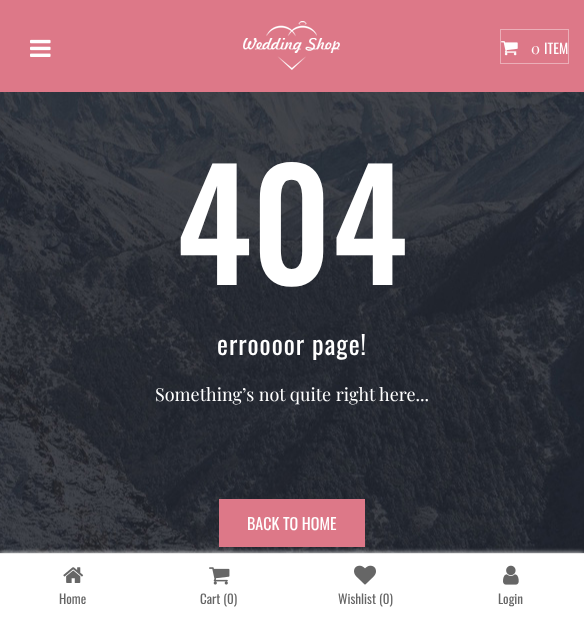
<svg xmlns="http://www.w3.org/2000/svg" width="584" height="617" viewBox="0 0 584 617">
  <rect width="100%" height="100%" fill="rgb(255,255,255)"/>
  <rect x="0" y="0" width="584" height="92" fill="rgb(221,120,136)"/>
  <image x="30" y="39" width="21" height="18" href="pic1.png"/>
  <image x="243" y="21" width="97" height="49" href="pic2.png"/>
  <rect x="500.5" y="29.5" width="68" height="34" fill="none" stroke="rgb(235,174,184)"/>
  <image x="501" y="41" width="17" height="15" href="pic3.png"/>
  <text x="531" y="54" font-family="Playfair Display" font-size="15" fill="rgb(255,255,255)">0</text>
  <text x="544" y="54" font-family="Oswald" font-size="14" fill="rgb(255,255,255)">ITEM</text>
  <image x="0" y="92" width="584" height="461" href="pic4.png"/>
  <text x="176" y="285" font-family="Oswald" font-size="150" font-weight="500" fill="rgb(255,255,255)">404</text>
  <text x="217" y="355" font-family="Oswald" font-size="26" letter-spacing="1" fill="rgb(255,255,255)">erroooor page!</text>
  <text x="155" y="401" font-family="Playfair Display" font-size="18" fill="rgb(255,255,255)">Something’s not quite right here...</text>
  <rect x="219" y="499" width="146" height="48" fill="rgb(221,120,136)"/>
  <text x="247" y="530" font-family="Oswald" font-size="16" fill="rgb(255,255,255)">BACK TO HOME</text>
  <rect x="0" y="553" width="584" height="64" fill="rgb(241,241,241)" filter="blur(2.5px)"/>
  <rect x="0" y="554" width="584" height="63" fill="rgb(255,255,255)"/>
  <rect x="0" y="553" width="584" height="1" fill="rgb(232,232,232)"/>
  <image x="63" y="567" width="21" height="16" href="pic5.png"/>
  <text x="59" y="604" font-family="Oswald" font-size="13" fill="rgb(102,102,102)">Home</text>
  <image x="209" y="567" width="21" height="18" href="pic6.png"/>
  <text x="200" y="604" font-family="Oswald" font-size="13" fill="rgb(102,102,102)">Cart (0)</text>
  <image x="354" y="565" width="22" height="20" href="pic7.png"/>
  <text x="338" y="604" font-family="Oswald" font-size="13" fill="rgb(102,102,102)">Wishlist (0)</text>
  <image x="503" y="565" width="16" height="20" href="pic8.png"/>
  <text x="498" y="604" font-family="Oswald" font-size="13" fill="rgb(102,102,102)">Login</text>
</svg>
